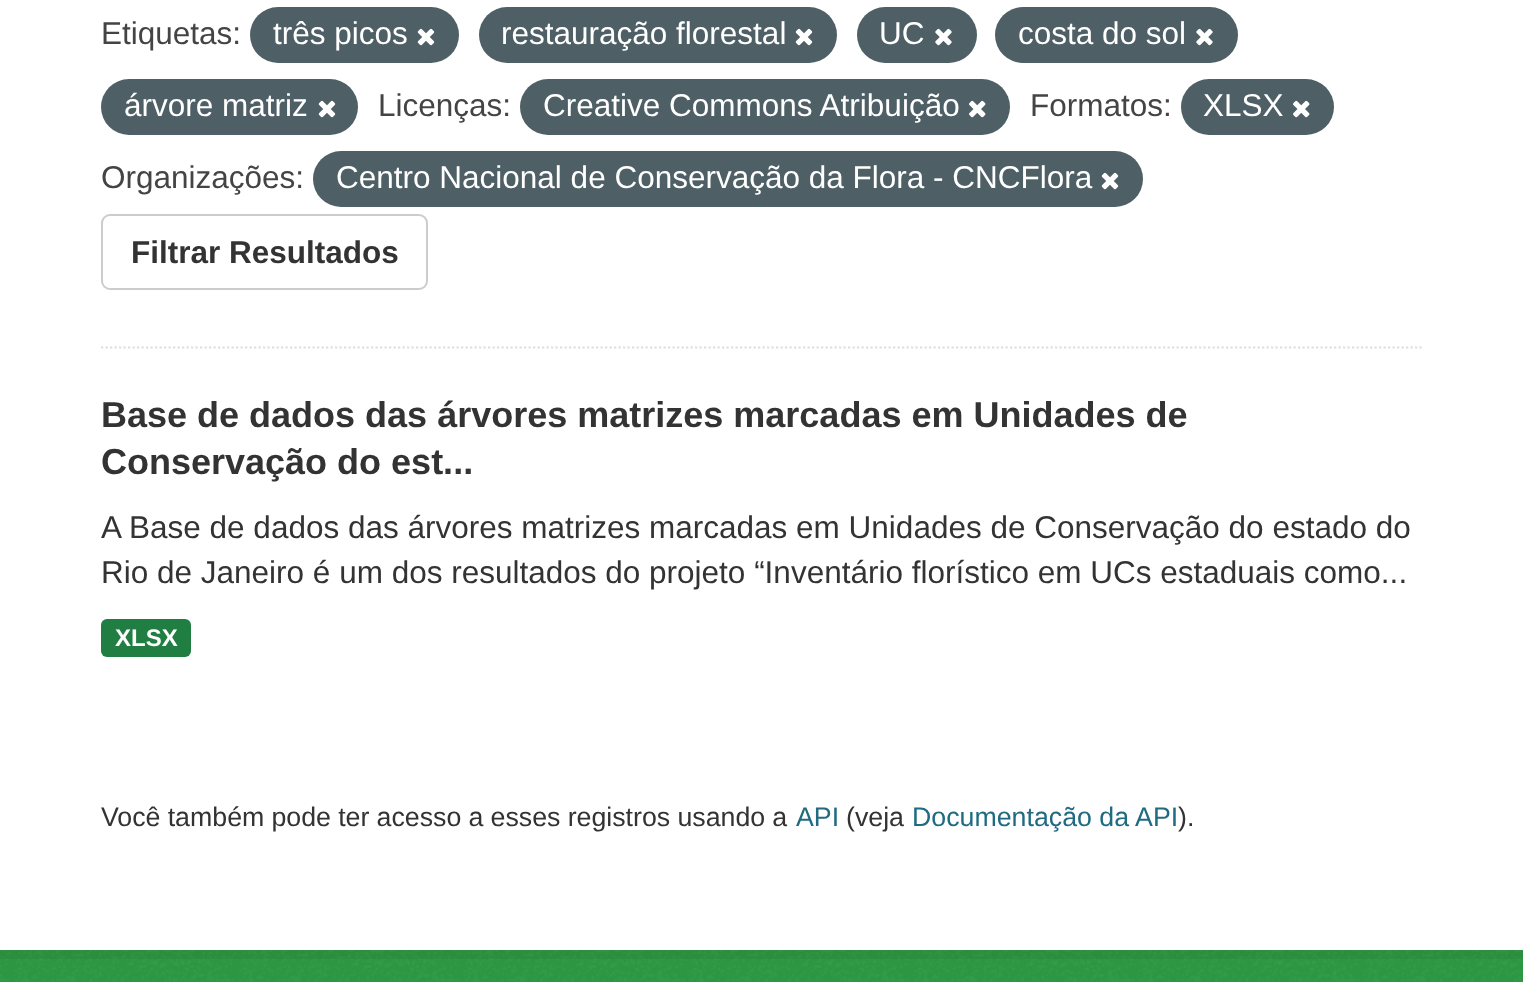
<svg xmlns="http://www.w3.org/2000/svg" width="1523" height="982" viewBox="0 0 1523 982">
  <rect width="100%" height="100%" fill="rgb(47,155,69)"/>
  <image x="0" y="950" width="1523" height="32" href="pic1.png"/>
  <rect x="-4.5" y="-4.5" width="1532" height="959" fill="none" stroke="rgba(0,0,0,0.05)" stroke-width="9"/>
  <rect x="0" y="0" width="1523" height="950" fill="rgb(255,255,255)"/>
  <path d="M101 347.5H1422" fill="none" stroke="rgb(221,221,221)" stroke-width="2.2" stroke-dasharray="2.25 2.25"/>
  <text x="101" y="44" font-family="Liberation Sans" font-size="31.5" fill="rgb(68,68,68)">Etiquetas:</text>
  <rect x="250" y="7" width="209" height="56" rx="28" fill="rgb(78,95,101)"/>
  <text x="273" y="44" font-family="Liberation Sans" font-size="31.5" fill="rgb(255,255,255)">três picos</text>
  <image x="417" y="28" width="18" height="18" href="pic2.png"/>
  <rect x="479" y="7" width="358" height="56" rx="28" fill="rgb(78,95,101)"/>
  <text x="501" y="44" font-family="Liberation Sans" font-size="31.5" fill="rgb(255,255,255)">restauração florestal</text>
  <image x="795" y="28" width="18" height="18" href="pic2.png"/>
  <rect x="857" y="7" width="120" height="56" rx="28" fill="rgb(78,95,101)"/>
  <text x="879" y="44" font-family="Liberation Sans" font-size="31.5" fill="rgb(255,255,255)">UC</text>
  <image x="935" y="28" width="17" height="18" href="pic3.png"/>
  <rect x="995" y="7" width="243" height="56" rx="28" fill="rgb(78,95,101)"/>
  <text x="1018" y="44" font-family="Liberation Sans" font-size="31.5" fill="rgb(255,255,255)">costa do sol</text>
  <image x="1196" y="28" width="17" height="18" href="pic3.png"/>
  <rect x="101" y="79" width="257" height="56" rx="28" fill="rgb(78,95,101)"/>
  <text x="124" y="116" font-family="Liberation Sans" font-size="31.5" fill="rgb(255,255,255)">árvore matriz</text>
  <image x="318" y="100" width="18" height="18" href="pic2.png"/>
  <text x="378" y="116" font-family="Liberation Sans" font-size="31.5" fill="rgb(68,68,68)">Licenças:</text>
  <rect x="520" y="79" width="490" height="56" rx="28" fill="rgb(78,95,101)"/>
  <text x="543" y="116" font-family="Liberation Sans" font-size="31.5" fill="rgb(255,255,255)">Creative Commons Atribuição</text>
  <image x="969" y="100" width="17" height="18" href="pic4.png"/>
  <text x="1030" y="116" font-family="Liberation Sans" font-size="31.5" fill="rgb(68,68,68)">Formatos:</text>
  <rect x="1181" y="79" width="153" height="56" rx="28" fill="rgb(78,95,101)"/>
  <text x="1203" y="116" font-family="Liberation Sans" font-size="31.5" fill="rgb(255,255,255)">XLSX</text>
  <image x="1293" y="100" width="17" height="18" href="pic4.png"/>
  <text x="101" y="188" font-family="Liberation Sans" font-size="31.5" fill="rgb(68,68,68)">Organizações:</text>
  <rect x="313" y="151" width="830" height="56" rx="28" fill="rgb(78,95,101)"/>
  <text x="336" y="188" font-family="Liberation Sans" font-size="31.5" fill="rgb(255,255,255)">Centro Nacional de Conservação da Flora - CNCFlora</text>
  <image x="1101" y="172" width="18" height="18" href="pic2.png"/>
  <rect x="102" y="215" width="325" height="74" rx="8" fill="none" stroke="rgb(204,204,204)" stroke-width="2"/>
  <text x="131" y="263" font-family="Liberation Sans" font-size="31.5" font-weight="bold" fill="rgb(51,51,51)">Filtrar Resultados</text>
  <g font-family="Liberation Sans" font-size="36" font-weight="bold" fill="rgb(51,51,51)">
    <text>
      <tspan x="101" y="427">Base de dados das árvores matrizes marcadas em Unidades de</tspan>
      <tspan x="101" y="474">Conservação do est...</tspan>
    </text>
  </g>
  <g font-family="Liberation Sans" font-size="31.5" fill="rgb(51,51,51)">
    <text>
      <tspan x="101" y="538">A Base de dados das árvores matrizes marcadas em Unidades de Conservação do estado do</tspan>
      <tspan x="101" y="583">Rio de Janeiro é um dos resultados do projeto “Inventário florístico em UCs estaduais como...</tspan>
    </text>
  </g>
  <rect x="101" y="619" width="90" height="38" rx="6" fill="rgb(32,126,66)"/>
  <text x="115" y="646" font-family="Liberation Sans" font-size="24" font-weight="bold" fill="rgb(255,255,255)">XLSX</text>
  <text x="101" y="826" word-spacing="-0.25" font-family="Liberation Sans" font-size="26.75" fill="rgb(51,51,51)">Você também pode ter acesso a esses registros usando a</text>
  <text x="796" y="826" font-family="Liberation Sans" font-size="26.75" fill="rgb(32,107,130)">API</text>
  <text x="846" y="826" font-family="Liberation Sans" font-size="26.75" fill="rgb(51,51,51)">(veja</text>
  <text x="912" y="826" font-family="Liberation Sans" font-size="26.75" fill="rgb(32,107,130)">Documentação da API</text>
  <text x="1178" y="826" font-family="Liberation Sans" font-size="26.75" fill="rgb(51,51,51)">).</text>
</svg>
